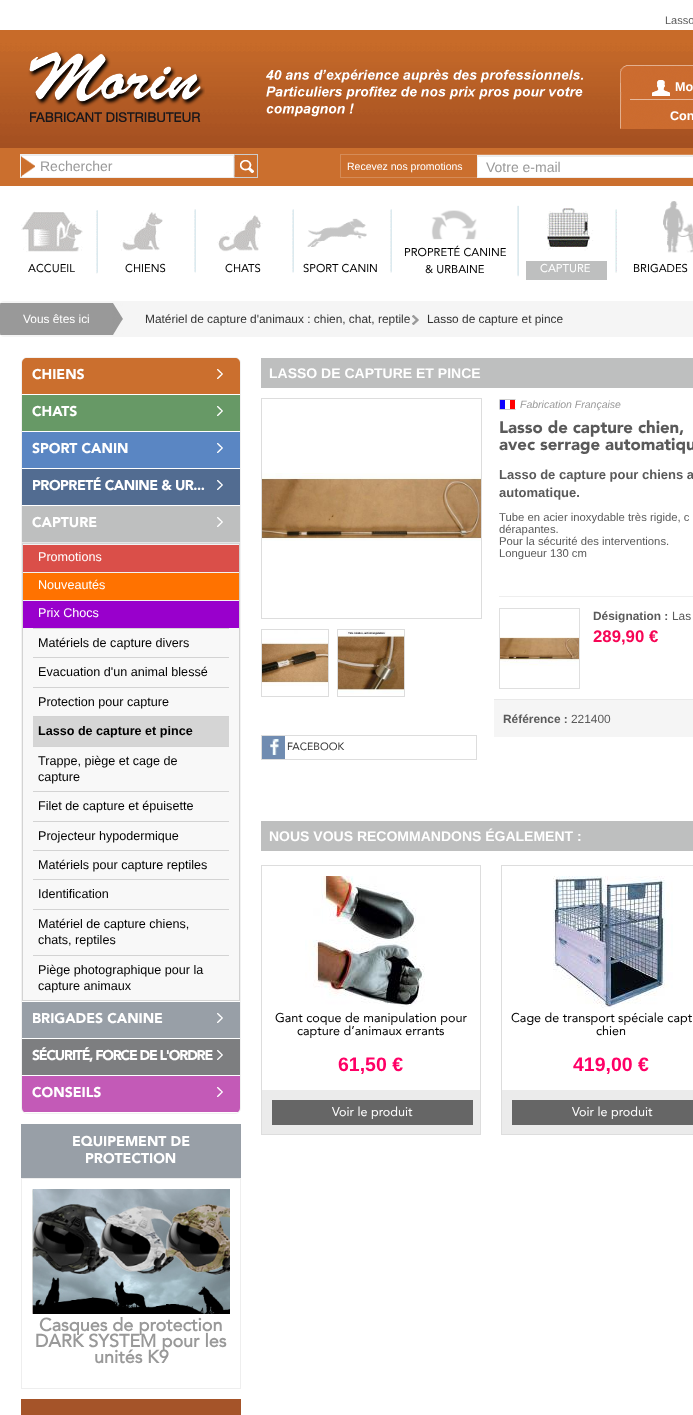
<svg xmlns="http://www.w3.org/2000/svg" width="693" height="1415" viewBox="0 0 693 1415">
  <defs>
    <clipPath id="clip1"><rect x="22" y="358" width="218" height="755" rx="5"/></clipPath>
  </defs>
  <rect width="100%" height="100%" fill="rgb(255,255,255)"/>
  <text x="665" y="24" font-family="Liberation Sans" font-size="11" fill="rgb(90,90,90)">Lasso</text>
  <image x="0" y="30" width="693" height="118" href="pic1.png"/>
  <image x="28" y="52" width="177" height="70" href="pic2.png"/>
  <image x="266" y="69" width="318" height="48" href="pic3.png"/>
  <image x="620" y="65" width="73" height="64" href="pic4.png"/>
  <image x="652" y="80" width="18" height="16" href="pic5.png"/>
  <g font-family="Liberation Sans" font-size="12.6" font-weight="bold" fill="rgb(255,255,255)">
    <text x="675" y="91">Mo</text>
    <text x="670" y="120">Con</text>
  </g>
  <rect x="0" y="148" width="693" height="38" fill="rgb(203,111,46)"/>
  <rect x="35" y="156" width="198" height="21" fill="rgb(255,255,255)"/>
  <image x="21" y="156" width="14" height="21" href="pic6.png"/>
  <rect x="21" y="155" width="212" height="1" fill="rgb(236,236,236)"/>
  <rect x="20.5" y="154.5" width="213" height="23" fill="none" stroke="rgb(238,238,238)"/>
  <text x="40" y="171" font-family="Liberation Sans" font-size="14" fill="rgb(153,153,153)">Rechercher</text>
  <image x="234" y="154" width="24" height="24" href="pic7.png"/>
  <rect x="340.5" y="154.5" width="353" height="23" fill="none" stroke="rgb(213,140,88)"/>
  <text x="347" y="170" font-family="Liberation Sans" font-size="10.5" fill="rgb(255,255,255)">Recevez nos promotions</text>
  <rect x="478" y="157" width="215" height="20" fill="rgb(255,255,255)"/>
  <rect x="478" y="156" width="215" height="1" fill="rgb(236,236,236)"/>
  <rect x="477.5" y="155.5" width="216" height="22" fill="none" stroke="rgb(238,238,238)"/>
  <text x="486" y="172" font-family="Liberation Sans" font-size="14" fill="rgb(153,153,153)">Votre e-mail</text>
  <image x="21" y="210" width="77" height="64" href="pic8.png"/>
  <text x="28" y="272" font-family="Avenir" font-size="11.25" fill="rgb(0,0,0)">ACCUEIL</text>
  <image x="120" y="209" width="76" height="64" href="pic9.png"/>
  <text x="125" y="272" font-family="Avenir" font-size="11.25" fill="rgb(0,0,0)">CHIENS</text>
  <image x="217" y="209" width="77" height="64" href="pic10.png"/>
  <text x="225" y="272" font-family="Avenir" font-size="11.25" fill="rgb(0,0,0)">CHATS</text>
  <image x="307" y="209" width="85" height="64" href="pic11.png"/>
  <text x="303" y="272" font-family="Avenir" font-size="11.25" fill="rgb(0,0,0)">SPORT CANIN</text>
  <image x="431" y="205" width="88" height="72" href="pic12.png"/>
  <g font-family="Avenir" font-size="11.25" fill="rgb(0,0,0)">
    <text x="404" y="256">PROPRETÉ CANINE</text>
    <text x="425" y="273">&amp; URBAINE</text>
  </g>
  <image x="547" y="208" width="70" height="65" href="pic13.png"/>
  <rect x="526" y="261" width="81" height="19" fill="rgb(190,191,191)"/>
  <text x="540" y="272" font-family="Avenir" font-size="11.25" fill="rgb(255,255,255)">CAPTURE</text>
  <image x="663" y="201" width="30" height="52" href="pic14.png"/>
  <text x="633" y="272" font-family="Avenir" font-size="11.25" fill="rgb(0,0,0)">BRIGADES</text>
  <rect x="0" y="301" width="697" height="36" rx="4" fill="rgb(245,245,245)"/>
  <image x="0" y="303" width="123" height="32" href="pic15.png"/>
  <text x="23" y="323" font-family="Liberation Sans" font-size="11.9" fill="rgb(255,255,255)">Vous êtes ici</text>
  <text x="145" y="323" font-family="Liberation Sans" font-size="11.9" fill="rgb(51,51,51)">Matériel de capture d'animaux : chien, chat, reptile</text>
  <image x="412" y="315" width="7" height="10" href="pic16.png"/>
  <text x="427" y="323" font-family="Liberation Sans" font-size="11.9" fill="rgb(51,51,51)">Lasso de capture et pince</text>
  <rect x="21.5" y="357.5" width="219" height="756" rx="5.5" fill="rgb(248,248,248)" stroke="rgb(242,242,242)"/>
  <rect x="22" y="394" width="218" height="1" fill="rgb(255,255,255)"/>
  <path d="M27 358H235C238 358 240 360 240 363V394H22V363C22 360 24 358 27 358Z" fill="rgb(203,111,46)"/>
  <text x="32" y="379" font-family="Avenir" font-size="14" font-weight="900" fill="rgb(255,255,255)">CHIENS</text>
  <image x="217" y="369" width="6" height="10" href="pic17.png"/>
  <rect x="22" y="431" width="218" height="1" fill="rgb(255,255,255)"/>
  <rect x="22" y="395" width="218" height="36" fill="rgb(103,153,102)"/>
  <text x="32" y="416" font-family="Avenir" font-size="14" font-weight="900" fill="rgb(255,255,255)">CHATS</text>
  <image x="217" y="406" width="6" height="10" href="pic18.png"/>
  <rect x="22" y="468" width="218" height="1" fill="rgb(255,255,255)"/>
  <rect x="22" y="432" width="218" height="36" fill="rgb(90,134,195)"/>
  <text x="32" y="453" font-family="Avenir" font-size="14" font-weight="900" fill="rgb(255,255,255)">SPORT CANIN</text>
  <image x="217" y="443" width="6" height="10" href="pic19.png"/>
  <rect x="22" y="505" width="218" height="1" fill="rgb(255,255,255)"/>
  <rect x="22" y="469" width="218" height="36" fill="rgb(82,108,145)"/>
  <text x="32" y="490" font-family="Avenir" font-size="14" font-weight="900" letter-spacing="-0.5" fill="rgb(255,255,255)">PROPRETÉ CANINE &amp; UR...</text>
  <image x="217" y="480" width="6" height="10" href="pic20.png"/>
  <rect x="22" y="1001" width="218" height="1" fill="rgb(255,255,255)"/>
  <rect x="22" y="506" width="218" height="36" fill="rgb(190,191,191)"/>
  <text x="32" y="527" font-family="Avenir" font-size="14" font-weight="900" fill="rgb(255,255,255)">CAPTURE</text>
  <image x="217" y="517" width="6" height="10" href="pic21.png"/>
  <rect x="22" y="542" width="218" height="1" fill="rgb(229,229,229)"/>
  <rect x="22.5" y="543.5" width="217" height="457" fill="none" stroke="rgb(211,211,211)"/>
  <rect x="23" y="545" width="216" height="27" fill="rgb(218,79,73)"/>
  <rect x="23" y="544" width="216" height="1" fill="rgb(242,242,242)"/>
  <text x="38" y="561" font-family="Liberation Sans" font-size="12.6" fill="rgb(255,255,255)">Promotions</text>
  <rect x="23" y="573" width="216" height="27" fill="rgb(255,114,0)"/>
  <rect x="23" y="572" width="216" height="1" fill="rgb(242,242,242)"/>
  <text x="38" y="589" font-family="Liberation Sans" font-size="12.6" fill="rgb(255,255,255)">Nouveautés</text>
  <rect x="23" y="601" width="216" height="27" fill="rgb(153,0,204)"/>
  <rect x="23" y="600" width="216" height="1" fill="rgb(242,242,242)"/>
  <text x="38" y="617" font-family="Liberation Sans" font-size="12.6" fill="rgb(255,255,255)">Prix Chocs</text>
  <rect x="33" y="628" width="196" height="1" fill="rgb(211,211,211)"/>
  <text x="38" y="647" font-family="Liberation Sans" font-size="12.6" fill="rgb(0,0,0)">Matériels de capture divers</text>
  <rect x="33" y="657" width="196" height="1" fill="rgb(211,211,211)"/>
  <text x="38" y="676" font-family="Liberation Sans" font-size="12.6" fill="rgb(0,0,0)">Evacuation d'un animal blessé</text>
  <rect x="33" y="687" width="196" height="1" fill="rgb(211,211,211)"/>
  <text x="38" y="706" font-family="Liberation Sans" font-size="12.6" fill="rgb(0,0,0)">Protection pour capture</text>
  <rect x="33" y="717" width="196" height="29" fill="rgb(213,213,213)"/>
  <rect x="33" y="716" width="196" height="1" fill="rgb(211,211,211)"/>
  <text x="38" y="735" font-family="Liberation Sans" font-size="12.6" font-weight="bold" fill="rgb(0,0,0)">Lasso de capture et pince</text>
  <rect x="33" y="746" width="196" height="1" fill="rgb(211,211,211)"/>
  <g font-family="Liberation Sans" font-size="12.6" fill="rgb(0,0,0)">
    <text>
      <tspan x="38" y="765">Trappe, piège et cage de</tspan>
      <tspan x="38" y="781">capture</tspan>
    </text>
  </g>
  <rect x="33" y="791" width="196" height="1" fill="rgb(211,211,211)"/>
  <text x="38" y="810" font-family="Liberation Sans" font-size="12.6" fill="rgb(0,0,0)">Filet de capture et épuisette</text>
  <rect x="33" y="821" width="196" height="1" fill="rgb(211,211,211)"/>
  <text x="38" y="840" font-family="Liberation Sans" font-size="12.6" fill="rgb(0,0,0)">Projecteur hypodermique</text>
  <rect x="33" y="850" width="196" height="1" fill="rgb(211,211,211)"/>
  <text x="38" y="869" font-family="Liberation Sans" font-size="12.6" fill="rgb(0,0,0)">Matériels pour capture reptiles</text>
  <rect x="33" y="879" width="196" height="1" fill="rgb(211,211,211)"/>
  <text x="38" y="898" font-family="Liberation Sans" font-size="12.6" fill="rgb(0,0,0)">Identification</text>
  <rect x="33" y="909" width="196" height="1" fill="rgb(211,211,211)"/>
  <g font-family="Liberation Sans" font-size="12.6" fill="rgb(0,0,0)">
    <text>
      <tspan x="38" y="928">Matériel de capture chiens,</tspan>
      <tspan x="38" y="944">chats, reptiles</tspan>
    </text>
  </g>
  <rect x="33" y="955" width="196" height="1" fill="rgb(211,211,211)"/>
  <g font-family="Liberation Sans" font-size="12.6" fill="rgb(0,0,0)">
    <text>
      <tspan x="38" y="974">Piège photographique pour la</tspan>
      <tspan x="38" y="990">capture animaux</tspan>
    </text>
  </g>
  <rect x="22" y="1038" width="218" height="1" fill="rgb(255,255,255)"/>
  <rect x="22" y="1002" width="218" height="36" fill="rgb(152,159,167)"/>
  <text x="32" y="1023" font-family="Avenir" font-size="14" font-weight="900" fill="rgb(255,255,255)">BRIGADES CANINE</text>
  <image x="217" y="1013" width="6" height="10" href="pic22.png"/>
  <rect x="22" y="1075" width="218" height="1" fill="rgb(255,255,255)"/>
  <rect x="22" y="1039" width="218" height="36" fill="rgb(125,126,128)"/>
  <text x="32" y="1060" font-family="Avenir" font-size="14" font-weight="900" letter-spacing="-1.2" fill="rgb(255,255,255)">SÉCURITÉ, FORCE DE L'ORDRE</text>
  <image x="217" y="1050" width="6" height="10" href="pic23.png"/>
  <g clip-path="url(#clip1)">
    <rect x="22" y="1112" width="218" height="1" fill="rgb(255,255,255)"/>
    <rect x="22" y="1076" width="218" height="36" fill="rgb(195,90,183)"/>
  </g>
  <text x="32" y="1097" font-family="Avenir" font-size="14" font-weight="900" fill="rgb(255,255,255)">CONSEILS</text>
  <image x="217" y="1087" width="6" height="10" href="pic24.png"/>
  <rect x="21" y="1124" width="220" height="54" fill="rgb(152,159,167)"/>
  <g font-family="Avenir" font-size="14" font-weight="900" fill="rgb(255,255,255)">
    <text x="72" y="1146">EQUIPEMENT DE</text>
    <text x="85" y="1163">PROTECTION</text>
  </g>
  <rect x="21.5" y="1178.5" width="219" height="210" fill="none" stroke="rgb(238,238,238)"/>
  <image x="32" y="1189" width="198" height="125" href="pic25.png"/>
  <g font-family="Avenir" font-size="18" font-weight="bold" fill="rgb(153,153,153)">
    <text x="39" y="1331">Casques de protection</text>
    <text x="35" y="1347">DARK SYSTEM pour les</text>
    <text x="94" y="1363">unités K9</text>
  </g>
  <rect x="21" y="1399" width="220" height="16" fill="rgb(165,84,41)"/>
  <rect x="261" y="358" width="432" height="30" fill="rgb(190,191,191)"/>
  <text x="269" y="378" font-family="Liberation Sans" font-size="14" font-weight="bold" fill="rgb(255,255,255)">LASSO DE CAPTURE ET PINCE</text>
  <image x="499" y="399" width="17" height="11" href="pic26.png"/>
  <text x="520" y="408" font-family="Liberation Sans" font-size="10.5" font-style="italic" fill="rgb(153,153,153)">Fabrication Française</text>
  <g font-family="Avenir" font-size="16.75" font-weight="900" fill="rgb(90,90,90)">
    <text>
      <tspan x="499" y="433">Lasso de capture chien,</tspan>
      <tspan x="499" y="450">avec serrage automatiqu</tspan>
    </text>
  </g>
  <g font-family="Liberation Sans" font-size="13" font-weight="bold" fill="rgb(90,90,90)">
    <text>
      <tspan x="499" y="479">Lasso de capture pour chiens a</tspan>
      <tspan x="499" y="497">automatique.</tspan>
    </text>
  </g>
  <g font-family="Liberation Sans" font-size="11.3" fill="rgb(90,90,90)">
    <text>
      <tspan x="499" y="521">Tube en acier inoxydable très rigide, c</tspan>
      <tspan x="499" y="533">dérapantes.</tspan>
      <tspan x="499" y="545">Pour la sécurité des interventions.</tspan>
      <tspan x="499" y="557">Longueur 130 cm</tspan>
    </text>
  </g>
  <rect x="499" y="596" width="194" height="1" fill="rgb(238,238,238)"/>
  <rect x="499.5" y="608.5" width="80" height="80" fill="none" stroke="rgb(223,223,223)"/>
  <image x="500" y="637" width="79" height="29" href="pic27.png"/>
  <text x="593" y="620" font-family="Liberation Sans" font-size="11.9" font-weight="bold" fill="rgb(90,90,90)">Désignation :</text>
  <text x="672" y="620" font-family="Liberation Sans" font-size="11.9" fill="rgb(90,90,90)">Las</text>
  <text x="593" y="642" font-family="Liberation Sans" font-size="16.75" font-weight="bold" fill="rgb(246,6,85)">289,90 €</text>
  <rect x="494" y="700" width="199" height="37" fill="rgb(245,245,245)"/>
  <rect x="494" y="699" width="199" height="1" fill="rgb(233,233,233)"/>
  <text x="503" y="723" font-family="Liberation Sans" font-size="11.9" font-weight="bold" fill="rgb(90,90,90)">Référence :</text>
  <text x="571" y="723" font-family="Liberation Sans" font-size="11.9" fill="rgb(90,90,90)">221400</text>
  <rect x="261.5" y="398.5" width="220" height="220" fill="none" stroke="rgb(221,221,221)"/>
  <image x="262" y="473" width="219" height="68" href="pic28.png"/>
  <rect x="261.5" y="629.5" width="67" height="67" fill="none" stroke="rgb(221,221,221)"/>
  <image x="262" y="630" width="66" height="66" href="pic29.png"/>
  <rect x="337.5" y="629.5" width="67" height="67" fill="none" stroke="rgb(221,221,221)"/>
  <image x="338" y="630" width="66" height="66" href="pic30.png"/>
  <rect x="261.5" y="735.5" width="215" height="24" fill="none" stroke="rgb(221,221,221)"/>
  <image x="262" y="736" width="23" height="23" href="pic31.png"/>
  <text x="287" y="750" font-family="Avenir" font-size="10.5" fill="rgb(51,51,51)">FACEBOOK</text>
  <rect x="261" y="821" width="432" height="30" fill="rgb(190,191,191)"/>
  <text x="269" y="841" font-family="Liberation Sans" font-size="14" font-weight="bold" fill="rgb(255,255,255)">NOUS VOUS RECOMMANDONS ÉGALEMENT :</text>
  <rect x="261.5" y="865.5" width="219" height="269" fill="none" stroke="rgb(221,221,221)"/>
  <image x="305" y="876" width="120" height="131" href="pic32.png"/>
  <g font-family="Avenir" font-size="12.6" fill="rgb(0,0,0)">
    <text x="275" y="1022">Gant coque de manipulation pour</text>
    <text x="297" y="1035">capture d’animaux errants</text>
  </g>
  <text x="338" y="1071" font-family="Liberation Sans" font-size="19.5" font-weight="bold" fill="rgb(255,0,102)">61,50 €</text>
  <rect x="262" y="1090" width="218" height="44" fill="rgb(235,235,235)"/>
  <rect x="272" y="1100" width="201" height="25" fill="rgb(102,102,102)"/>
  <text x="332" y="1116" font-family="Avenir" font-size="12.6" fill="rgb(255,255,255)">Voir le produit</text>
  <rect x="501.5" y="865.5" width="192" height="269" fill="none" stroke="rgb(221,221,221)"/>
  <image x="553" y="876" width="120" height="132" href="pic33.png"/>
  <g font-family="Avenir" font-size="12.6" fill="rgb(0,0,0)">
    <text x="511" y="1022">Cage de transport spéciale capt</text>
    <text x="596" y="1035">chien</text>
  </g>
  <text x="573" y="1071" font-family="Liberation Sans" font-size="19.5" font-weight="bold" fill="rgb(255,0,102)">419,00 €</text>
  <rect x="502" y="1090" width="191" height="44" fill="rgb(235,235,235)"/>
  <rect x="512" y="1100" width="181" height="25" fill="rgb(102,102,102)"/>
  <text x="572" y="1116" font-family="Avenir" font-size="12.6" fill="rgb(255,255,255)">Voir le produit</text>
</svg>
